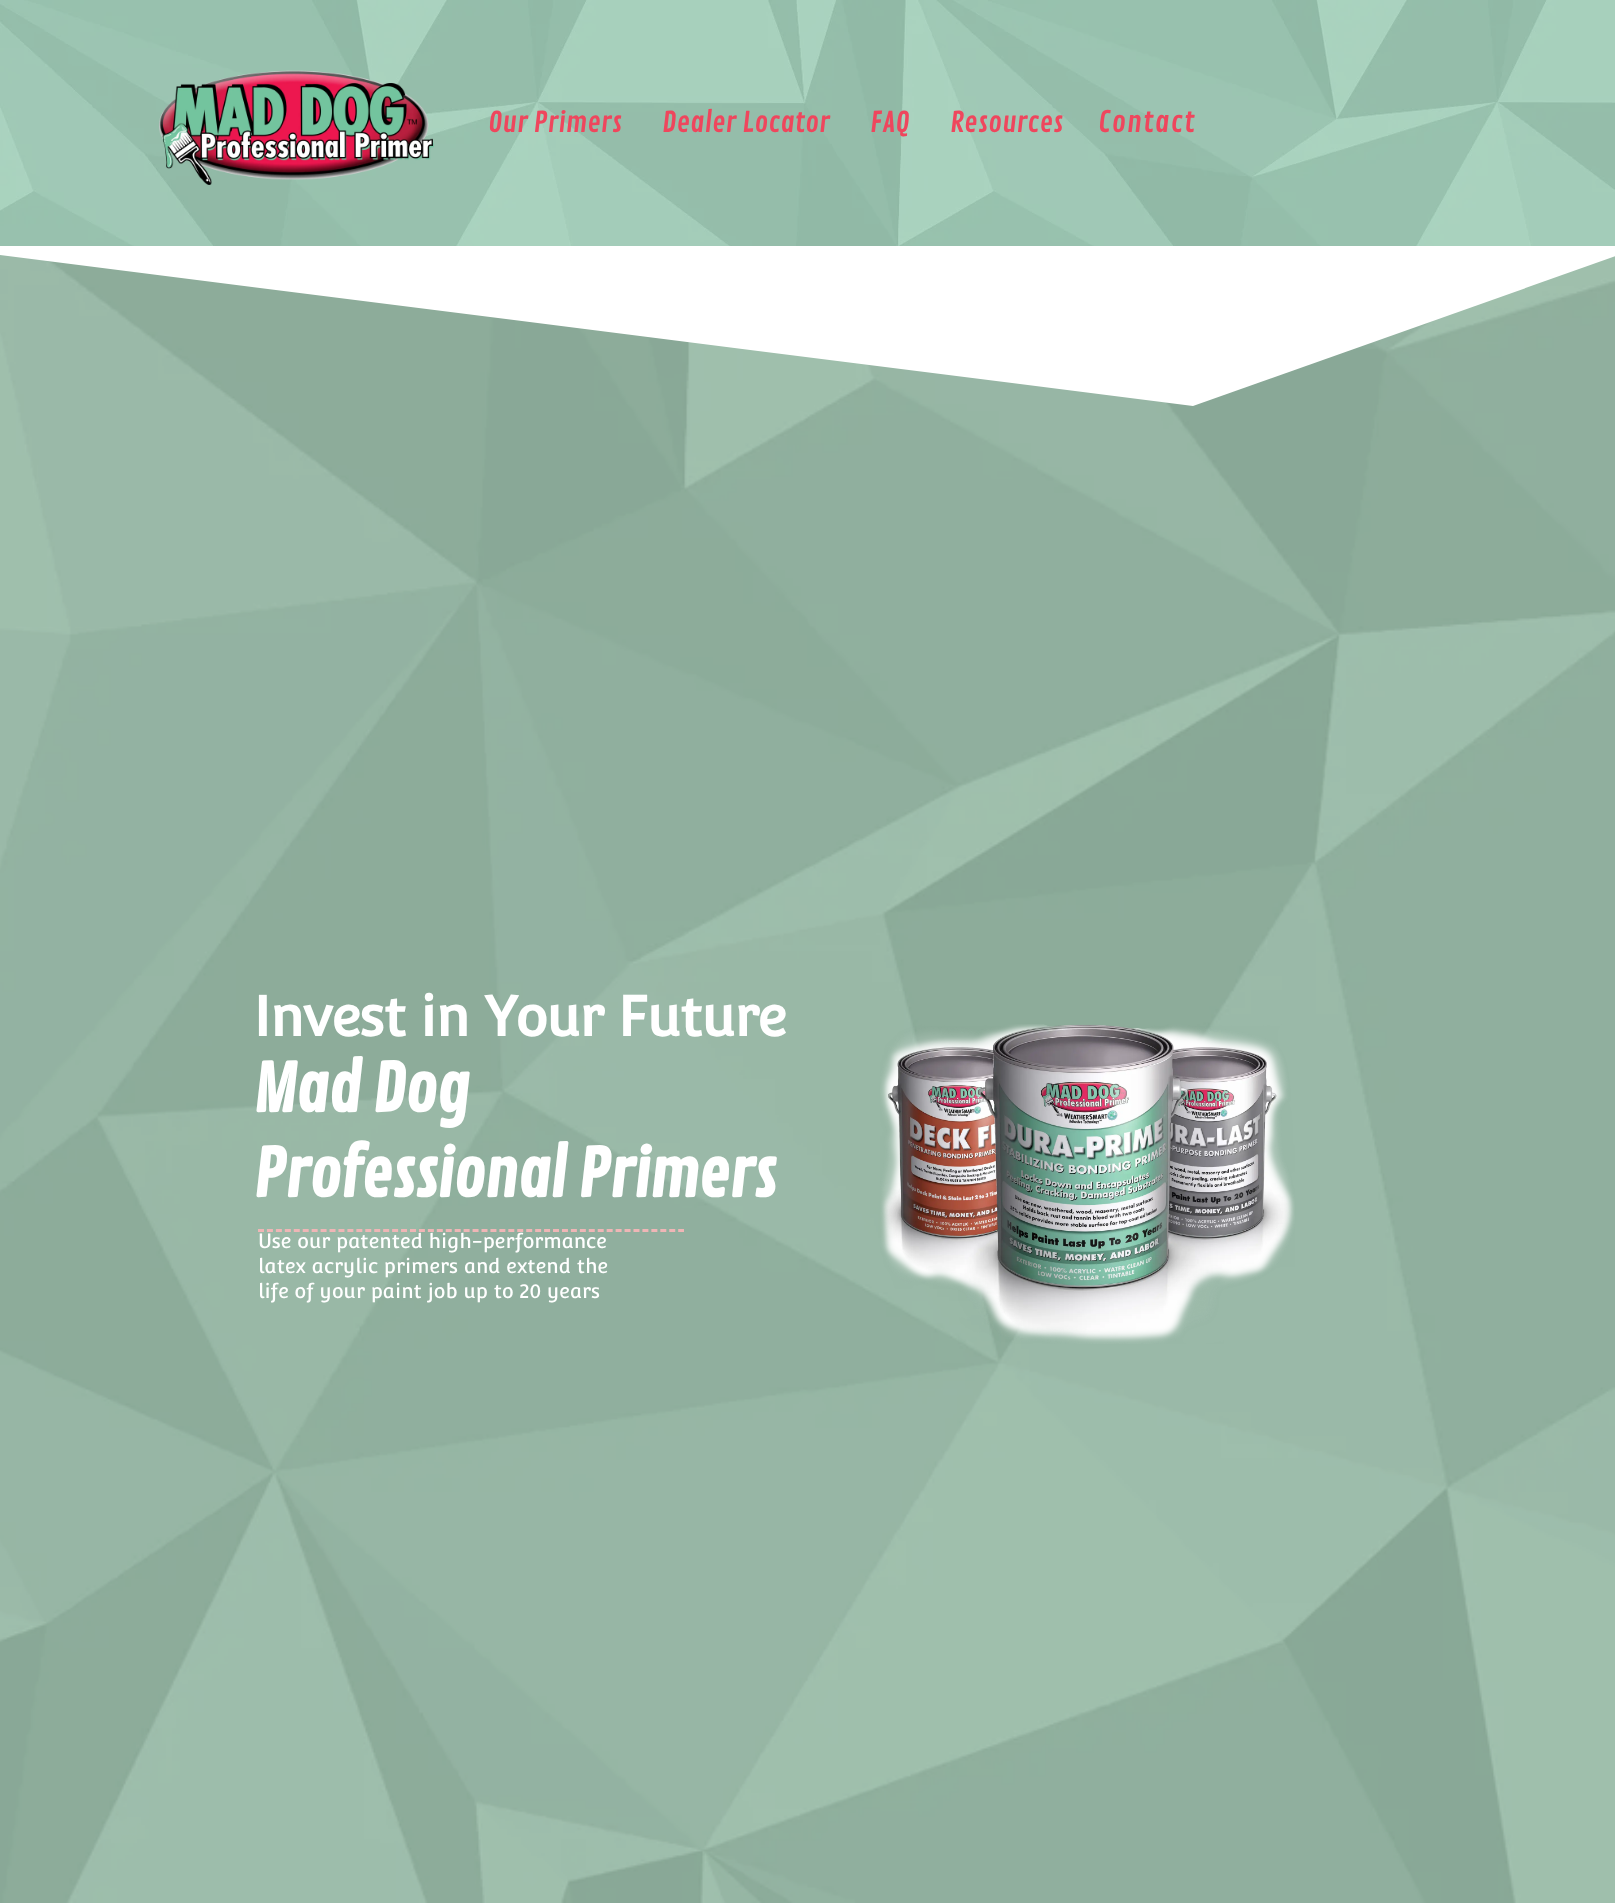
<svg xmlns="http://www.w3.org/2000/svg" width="1615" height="1903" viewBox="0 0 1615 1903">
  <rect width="100%" height="100%" fill="rgb(155,205,180)"/>
  <image x="0" y="0" width="1615" height="246" href="pic1.png"/>
  <image x="159" y="70" width="275" height="115" href="pic2.png"/>
  <g font-family="Contrail One" font-size="28" fill="rgb(239,70,93)">
    <text x="488" y="132">Our Primers</text>
    <text x="662" y="132">Dealer Locator</text>
    <text x="870" y="132">FAQ</text>
    <text x="950" y="132">Resources</text>
  </g>
  <text x="1098" y="132" font-family="Contrail One" font-size="29" letter-spacing="1" fill="rgb(239,70,93)">Contact</text>
  <image x="0" y="255" width="1615" height="1648" href="pic3.png"/>
  <rect x="0" y="255" width="1615" height="1648" fill="rgba(66,0,0,0.09)"/>
  <path d="M1193 406L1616 256V246H0V255Z" fill="rgb(255,255,255)"/>
  <text x="253" y="1036" font-family="Convergence" font-size="55" font-weight="bold" letter-spacing="-1.3" fill="rgb(255,255,255)">Invest in Your Future</text>
  <g font-family="Contrail One" font-size="65.5" font-weight="bold" letter-spacing="-1.3" fill="rgb(255,255,255)">
    <text>
      <tspan x="253" y="1112">Mad Dog</tspan>
      <tspan x="253" y="1197">Professional Primers</tspan>
    </text>
  </g>
  <path d="M258 1230.5H684" fill="none" stroke="rgb(239,182,182)" stroke-width="3" stroke-dasharray="6 2.94"/>
  <g font-family="Convergence" font-size="20" fill="rgb(255,255,255)">
    <text>
      <tspan x="258" y="1248">Use our patented high-performance</tspan>
      <tspan x="258" y="1273">latex acrylic primers and extend the</tspan>
      <tspan x="258" y="1298">life of your paint job up to 20 years</tspan>
    </text>
  </g>
  <image x="880" y="1024" width="415" height="320" href="pic4.png"/>
</svg>
